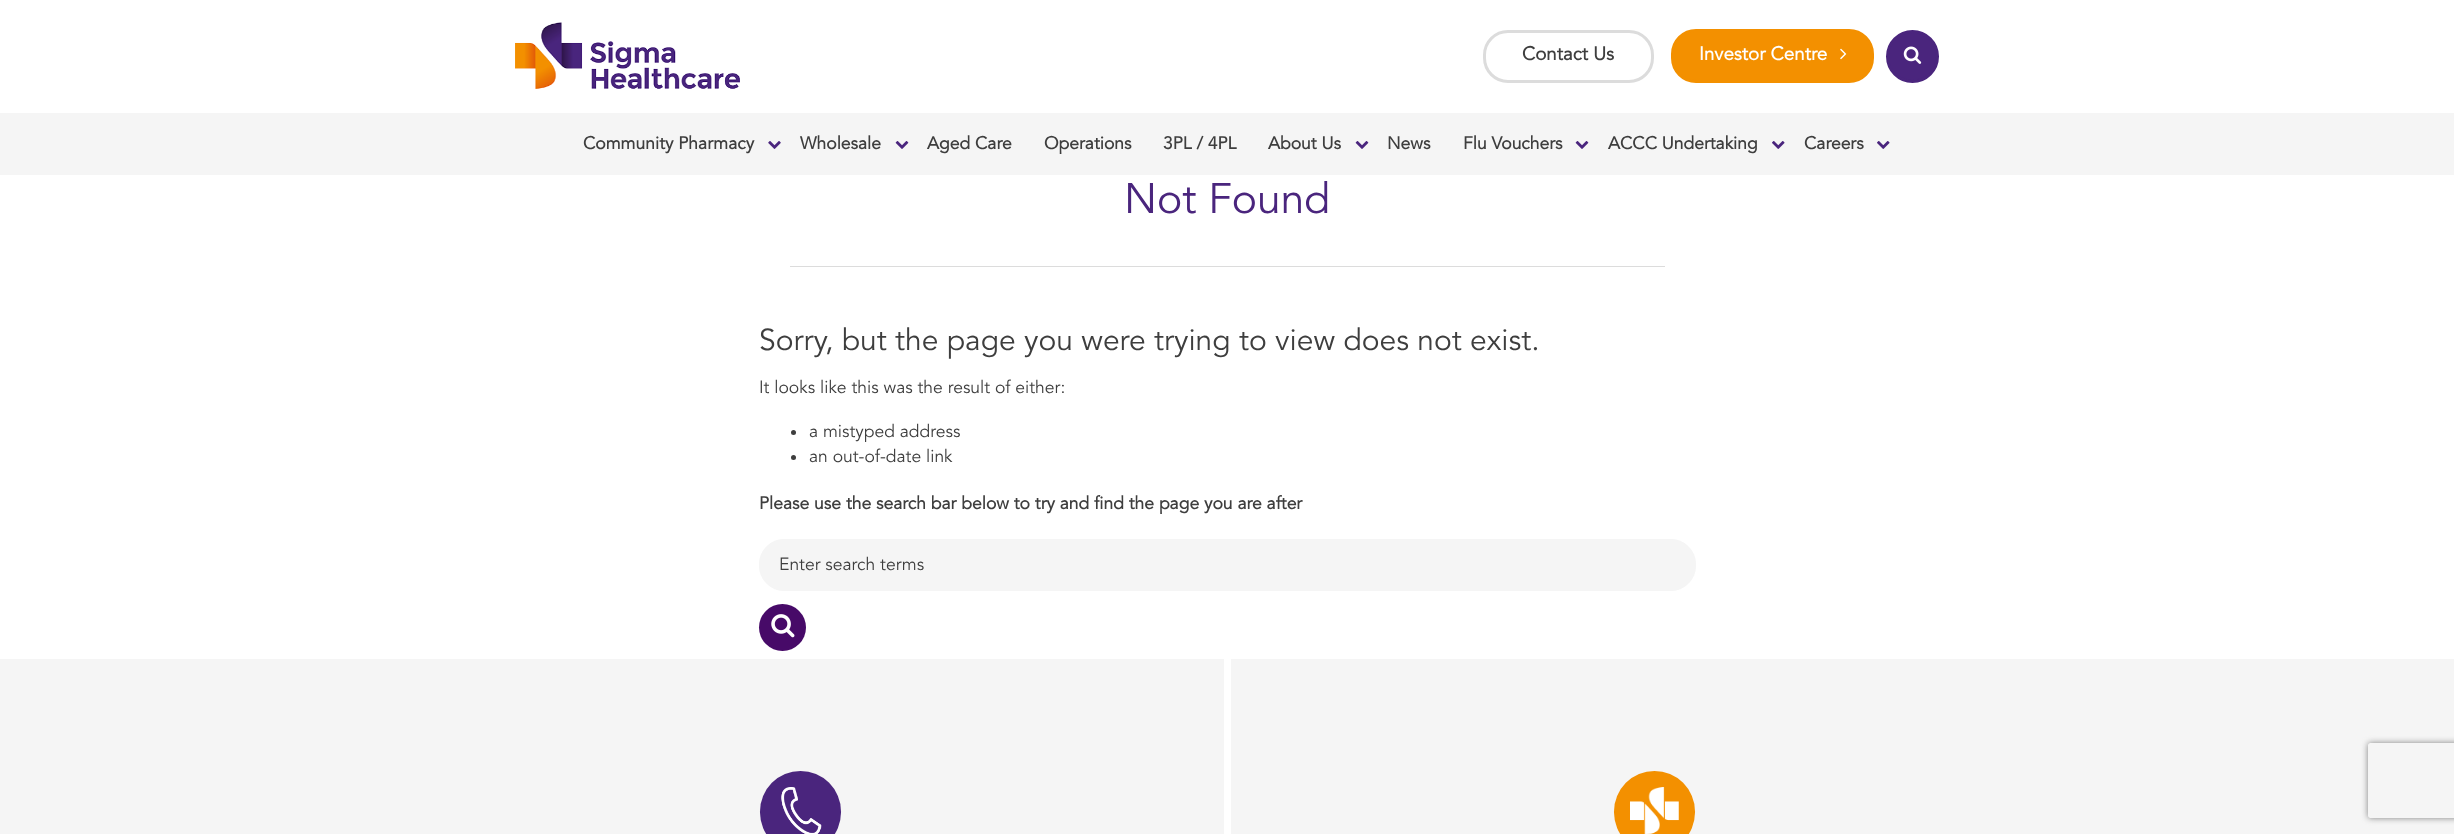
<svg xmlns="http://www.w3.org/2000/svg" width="2454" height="834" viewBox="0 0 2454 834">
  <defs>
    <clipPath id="clip1"><path d="M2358 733H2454V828H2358ZM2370.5 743H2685.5C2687 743 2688 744 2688 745.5V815.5C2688 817 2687 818 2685.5 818H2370.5C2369 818 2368 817 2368 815.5V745.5C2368 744 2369 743 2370.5 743Z" clip-rule="evenodd"/></clipPath>
  </defs>
  <rect width="100%" height="100%" fill="rgb(255,255,255)"/>
  <image x="515" y="22" width="225" height="67" href="pic1.png"/>
  <rect x="1484.5" y="31.5" width="168" height="50" rx="23.5" fill="none" stroke="rgb(220,220,220)" stroke-width="3"/>
  <text x="1522" y="60" font-family="Avenir" font-size="18.75" font-weight="bold" fill="rgb(62,62,62)">Contact Us</text>
  <rect x="1672.5" y="30.5" width="200" height="51" rx="23.5" fill="rgb(243,144,0)" stroke="rgb(243,144,0)" stroke-width="3"/>
  <text x="1699" y="60" font-family="Avenir" font-size="18.75" font-weight="bold" fill="rgb(255,255,255)">Investor Centre</text>
  <image x="1840" y="48" width="7" height="12" href="pic2.png"/>
  <circle cx="1912.5" cy="56.5" r="25" fill="rgb(74,37,125)" stroke="rgb(74,37,125)" stroke-width="3"/>
  <image x="1903" y="46" width="19" height="18" href="pic3.png"/>
  <rect x="0" y="113" width="2454" height="62" fill="rgb(245,245,245)"/>
  <text x="583" y="149" font-family="Avenir" font-size="17.5" font-weight="bold" fill="rgb(62,62,62)">Community Pharmacy</text>
  <image x="768" y="141" width="13" height="8" href="pic4.png"/>
  <text x="800" y="149" font-family="Avenir" font-size="17.5" font-weight="bold" fill="rgb(62,62,62)">Wholesale</text>
  <image x="895" y="141" width="14" height="8" href="pic5.png"/>
  <g font-family="Avenir" font-size="17.5" font-weight="bold" fill="rgb(62,62,62)">
    <text x="927" y="149">Aged Care</text>
    <text x="1044" y="149">Operations</text>
    <text x="1163" y="149">3PL / 4PL</text>
    <text x="1268" y="149">About Us</text>
  </g>
  <image x="1355" y="141" width="14" height="8" href="pic5.png"/>
  <g font-family="Avenir" font-size="17.5" font-weight="bold" fill="rgb(62,62,62)">
    <text x="1387" y="149">News</text>
    <text x="1463" y="149">Flu Vouchers</text>
  </g>
  <image x="1575" y="141" width="14" height="8" href="pic5.png"/>
  <text x="1608" y="149" font-family="Avenir" font-size="17.5" font-weight="bold" fill="rgb(62,62,62)">ACCC Undertaking</text>
  <image x="1772" y="141" width="13" height="8" href="pic6.png"/>
  <text x="1804" y="149" font-family="Avenir" font-size="17.5" font-weight="bold" fill="rgb(62,62,62)">Careers</text>
  <image x="1877" y="141" width="13" height="8" href="pic6.png"/>
  <rect x="790" y="266" width="875" height="1" fill="rgb(220,220,220)"/>
  <text x="1124" y="213" font-family="Avenir" font-size="42.5" fill="rgb(74,37,125)">Not Found</text>
  <text x="759" y="350" font-family="Avenir" font-size="30" fill="rgb(62,62,62)">Sorry, but the page you were trying to view does not exist.</text>
  <text x="759" y="393" font-family="Avenir" font-size="17.5" fill="rgb(62,62,62)">It looks like this was the result of either:</text>
  <circle cx="793.5" cy="432.5" r="2.5" fill="rgb(62,62,62)"/>
  <text x="809" y="437" font-family="Avenir" font-size="17.5" fill="rgb(62,62,62)">a mistyped address</text>
  <circle cx="793.5" cy="457.5" r="2.5" fill="rgb(62,62,62)"/>
  <text x="809" y="462" font-family="Avenir" font-size="17.5" fill="rgb(62,62,62)">an out-of-date link</text>
  <text x="759" y="509" font-family="Avenir" font-size="17.5" font-weight="bold" fill="rgb(62,62,62)">Please use the search bar below to try and find the page you are after</text>
  <rect x="759.5" y="539.5" width="936" height="51" rx="24.5" fill="rgb(245,245,245)" stroke="rgb(245,245,245)"/>
  <text x="779" y="570" font-family="Avenir" font-size="17.5" fill="rgb(62,62,62)">Enter search terms</text>
  <circle cx="782.5" cy="627.5" r="23.5" fill="rgb(71,10,104)"/>
  <image x="771" y="614" width="24" height="24" href="pic7.png"/>
  <rect x="0" y="659" width="2454" height="175" fill="rgb(245,245,245)"/>
  <rect x="1224" y="659" width="7" height="175" fill="rgb(255,255,255)"/>
  <rect x="760" y="771" width="81" height="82" rx="40.5" fill="rgb(74,37,125)"/>
  <image x="781" y="787" width="41" height="47" href="pic8.png"/>
  <rect x="1614" y="771" width="81" height="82" rx="40.5" fill="rgb(243,144,0)"/>
  <image x="1630" y="787" width="49" height="47" href="pic9.png"/>
  <g clip-path="url(#clip1)">
    <rect x="2368" y="743" width="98" height="75" rx="2.5" fill="rgb(128,128,128)" filter="blur(3px)"/>
  </g>
</svg>
